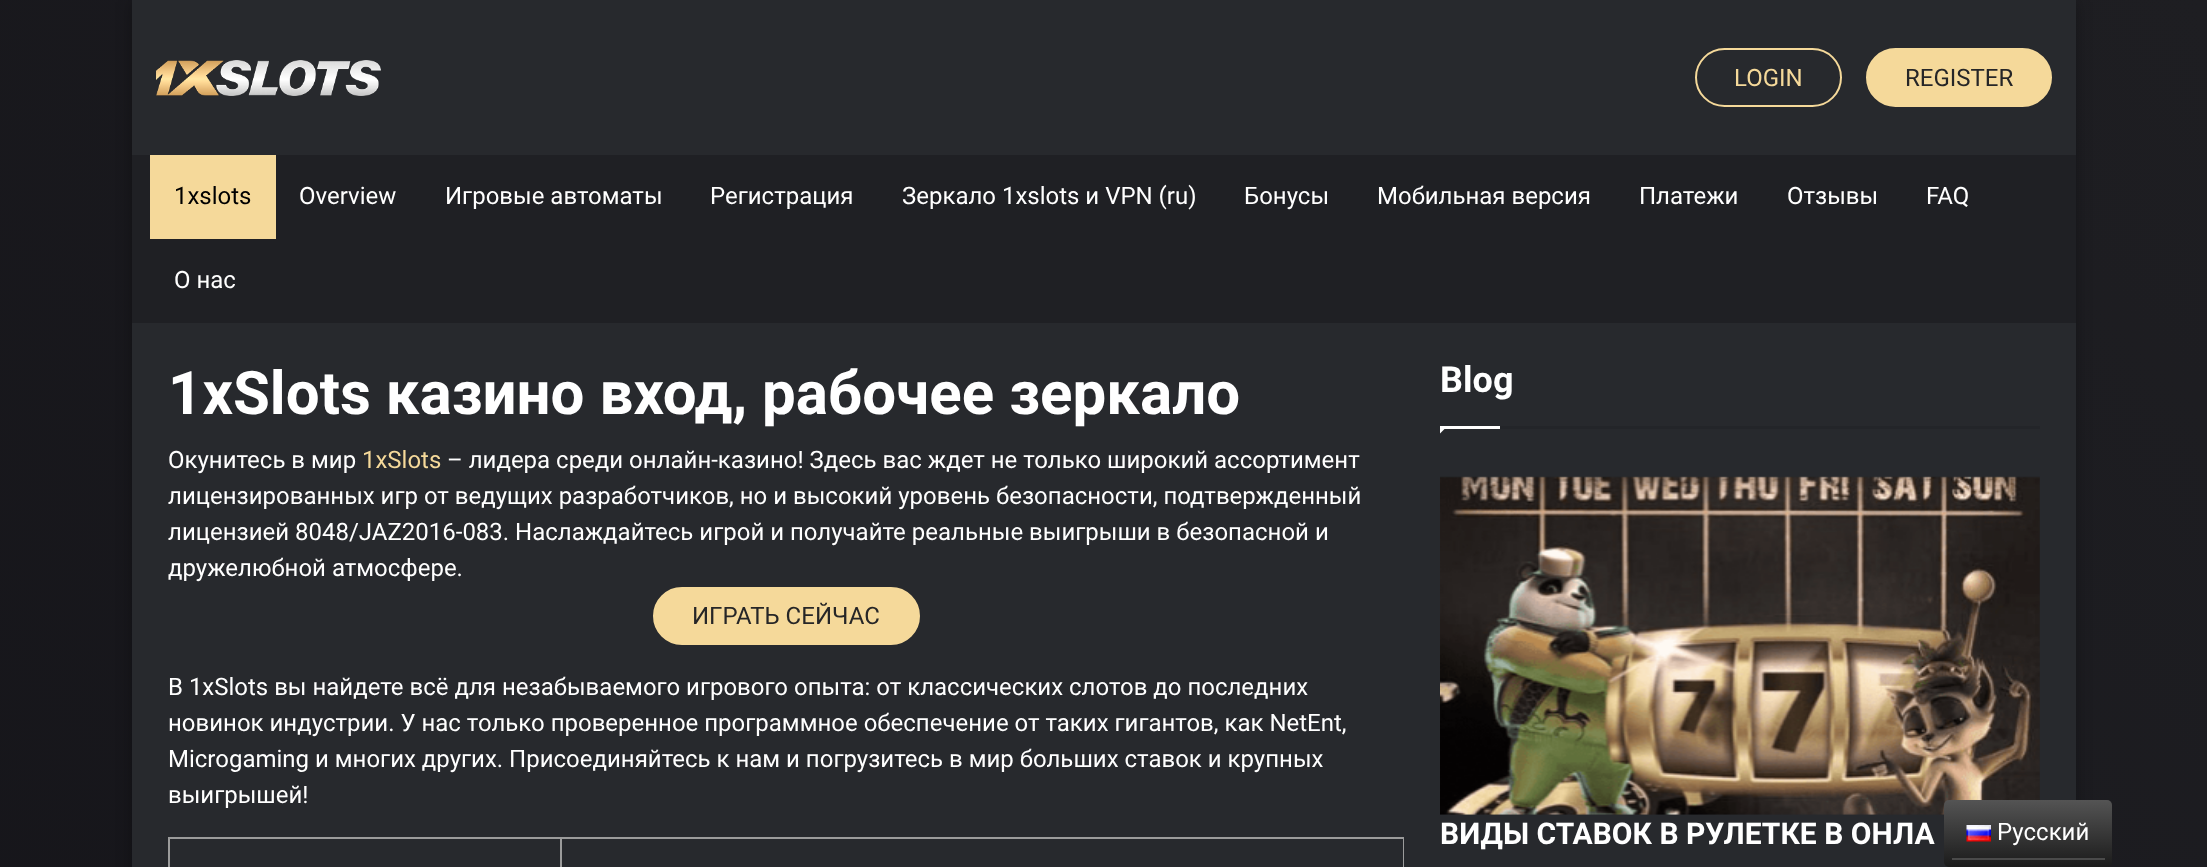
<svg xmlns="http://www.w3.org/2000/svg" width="2207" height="867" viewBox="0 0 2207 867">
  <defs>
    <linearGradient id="g1" gradientUnits="userSpaceOnUse" x1="-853" y1="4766" x2="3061" y2="853"><stop offset="0" stop-color="rgb(11,10,16)"/><stop offset="1" stop-color="rgb(30,30,34)"/></linearGradient>
    <linearGradient id="g2" gradientUnits="userSpaceOnUse" x1="2028" y1="867" x2="2028" y2="800"><stop offset="0" stop-color="rgb(27,27,27)"/><stop offset="1" stop-color="rgb(84,84,84)"/></linearGradient>
  </defs>
  <rect width="100%" height="100%" fill="rgb(255,255,255)"/>
  <rect x="0" y="0" width="2207" height="867" fill="url(#g1)"/>
  <rect x="132" y="2" width="1944" height="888" fill="rgba(0,0,0,0.3)" filter="blur(7.5px)"/>
  <rect x="132" y="0" width="1944" height="867" fill="rgb(39,41,45)"/>
  <image x="156" y="60" width="225" height="36" href="pic1.png"/>
  <rect x="1696" y="49" width="145" height="57" rx="28.5" fill="none" stroke="rgb(245,217,154)" stroke-width="2"/>
  <text x="1734" y="86" font-family="Roboto" font-size="24" fill="rgb(245,217,154)">LOGIN</text>
  <rect x="1867" y="49" width="184" height="57" rx="28.5" fill="rgb(245,217,154)" stroke="rgb(245,217,154)" stroke-width="2"/>
  <text x="1905" y="86" font-family="Roboto" font-size="24" fill="rgb(38,38,39)">REGISTER</text>
  <rect x="132" y="155" width="1944" height="168" fill="rgb(31,32,36)"/>
  <rect x="150" y="155" width="126" height="84" fill="rgb(245,217,154)"/>
  <text x="174" y="204" font-family="Roboto" font-size="24" fill="rgb(0,0,0)">1xslots</text>
  <g font-family="Roboto" font-size="24" fill="rgb(255,255,255)">
    <text x="299" y="204">Overview</text>
    <text x="445" y="204">Игровые автоматы</text>
    <text x="710" y="204">Регистрация</text>
    <text x="902" y="204">Зеркало 1xslots и VPN (ru)</text>
    <text x="1244" y="204">Бонусы</text>
    <text x="1377" y="204">Мобильная версия</text>
    <text x="1639" y="204">Платежи</text>
    <text x="1787" y="204">Отзывы</text>
    <text x="1926" y="204">FAQ</text>
    <text x="174" y="288">О нас</text>
  </g>
  <text x="168" y="414" font-family="Roboto" font-size="60" font-weight="bold" fill="rgb(255,255,255)">1xSlots казино вход, рабочее зеркало</text>
  <text x="168" y="468" font-family="Roboto" font-size="24" fill="rgb(255,255,255)">Окунитесь в мир</text>
  <text x="362" y="468" font-family="Roboto" font-size="24" fill="rgb(245,217,154)">1xSlots</text>
  <g font-family="Roboto" font-size="24" fill="rgb(255,255,255)">
    <text x="447" y="468">– лидера среди онлайн-казино! Здесь вас ждет не только широкий ассортимент</text>
    <text>
      <tspan x="168" y="504">лицензированных игр от ведущих разработчиков, но и высокий уровень безопасности, подтвержденный</tspan>
      <tspan x="168" y="540">лицензией 8048/JAZ2016-083. Наслаждайтесь игрой и получайте реальные выигрыши в безопасной и</tspan>
      <tspan x="168" y="576">дружелюбной атмосфере.</tspan>
    </text>
  </g>
  <rect x="654" y="588" width="265" height="56" rx="28" fill="rgb(245,217,154)" stroke="rgb(245,217,154)" stroke-width="2"/>
  <text x="692" y="624" font-family="Roboto" font-size="24" fill="rgb(38,38,39)">ИГРАТЬ СЕЙЧАС</text>
  <g font-family="Roboto" font-size="24" fill="rgb(255,255,255)">
    <text>
      <tspan x="168" y="695">В 1xSlots вы найдете всё для незабываемого игрового опыта: от классических слотов до последних</tspan>
      <tspan x="168" y="731">новинок индустрии. У нас только проверенное программное обеспечение от таких гигантов, как NetEnt,</tspan>
      <tspan x="168" y="767">Microgaming и многих других. Присоединяйтесь к нам и погрузитесь в мир больших ставок и крупных</tspan>
      <tspan x="168" y="803">выигрышей!</tspan>
    </text>
  </g>
  <rect x="168" y="837" width="1236" height="2" fill="rgb(155,155,155)"/>
  <rect x="1403" y="837" width="1" height="30" fill="rgb(155,155,155)"/>
  <rect x="168" y="837" width="2" height="30" fill="rgb(155,155,155)"/>
  <rect x="560" y="837" width="2" height="30" fill="rgb(155,155,155)"/>
  <rect x="1500" y="426" width="540" height="3" fill="rgb(35,37,41)"/>
  <text x="1440" y="392" font-family="Roboto" font-size="36" font-weight="bold" fill="rgb(255,255,255)">Blog</text>
  <path d="M1440 426H1447.5L1440 433.5Z" fill="rgb(255,255,255)"/>
  <rect x="1440" y="426" width="60" height="3" fill="rgb(255,255,255)"/>
  <image x="1440" y="476" width="600" height="339" href="pic2.png"/>
  <text x="1440" y="844" font-family="Roboto" font-size="30" font-weight="bold" fill="rgb(255,255,255)">ВИДЫ СТАВОК В РУЛЕТКЕ В ОНЛА</text>
  <rect x="1944" y="800" width="168" height="67" rx="5" fill="url(#g2)"/>
  <rect x="1952" y="858" width="153" height="2" fill="rgb(74,74,74)"/>
  <image x="1966" y="825" width="25" height="17" href="pic3.png"/>
  <text x="1997" y="840" font-family="Roboto" font-size="24" fill="rgb(255,255,255)">Русский</text>
</svg>
